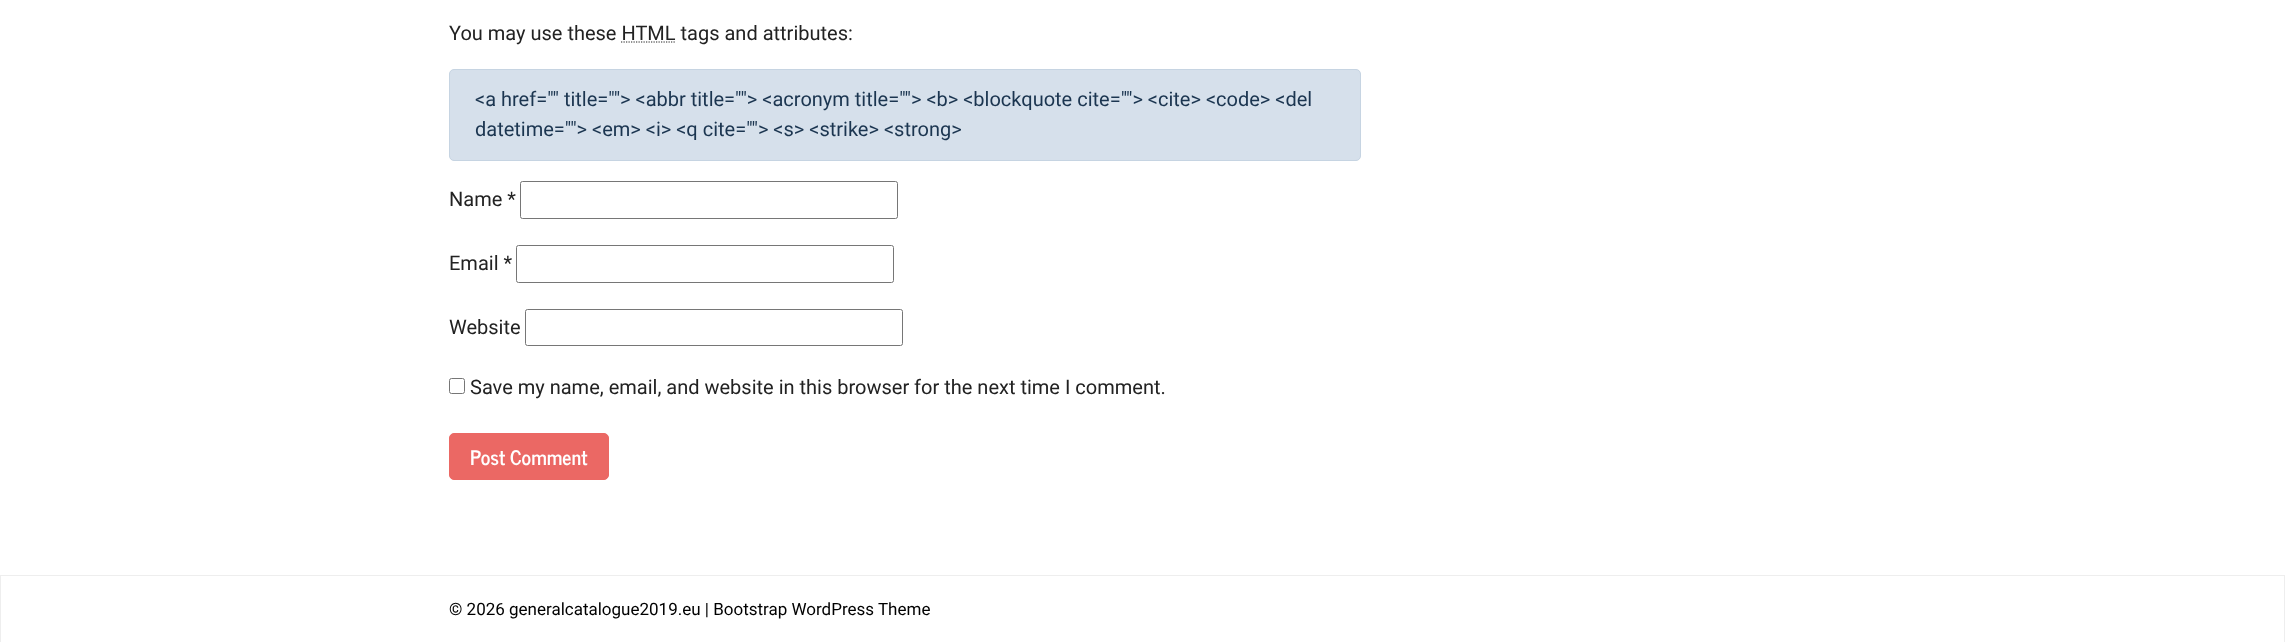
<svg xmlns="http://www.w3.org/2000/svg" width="2285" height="642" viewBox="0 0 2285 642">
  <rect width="100%" height="100%" fill="rgb(255,255,255)"/>
  <text x="449" y="40" font-family="Roboto" font-size="20" fill="rgb(34,34,34)">You may use these HTML tags and attributes:</text>
  <path d="M621 42H675.5" fill="none" stroke="rgb(34,34,34)" stroke-width="1.2" stroke-dasharray="1.25 1.25"/>
  <rect x="449.5" y="69.5" width="911" height="91" rx="4.5" fill="rgb(214,224,235)" stroke="rgb(198,212,226)"/>
  <g font-family="Roboto" font-size="20" fill="rgb(27,53,80)">
    <text>
      <tspan x="475" y="106">&lt;a href="" title=""&gt; &lt;abbr title=""&gt; &lt;acronym title=""&gt; &lt;b&gt; &lt;blockquote cite=""&gt; &lt;cite&gt; &lt;code&gt; &lt;del</tspan>
      <tspan x="475" y="136">datetime=""&gt; &lt;em&gt; &lt;i&gt; &lt;q cite=""&gt; &lt;s&gt; &lt;strike&gt; &lt;strong&gt;</tspan>
    </text>
  </g>
  <text x="449" y="206" font-family="Roboto" font-size="20" fill="rgb(34,34,34)">Name *</text>
  <rect x="520.5" y="181.5" width="377" height="37" rx="2" fill="none" stroke="rgb(118,118,118)"/>
  <text x="449" y="270" font-family="Roboto" font-size="20" fill="rgb(34,34,34)">Email *</text>
  <rect x="516.5" y="245.5" width="377" height="37" rx="2" fill="none" stroke="rgb(118,118,118)"/>
  <text x="449" y="334" font-family="Roboto" font-size="20" fill="rgb(34,34,34)">Website</text>
  <rect x="525.5" y="309.5" width="377" height="36" rx="2" fill="none" stroke="rgb(118,118,118)"/>
  <rect x="449.5" y="378.5" width="15" height="15" rx="2" fill="none" stroke="rgb(118,118,118)"/>
  <text x="470" y="394" font-family="Roboto" font-size="20" fill="rgb(34,34,34)">Save my name, email, and website in this browser for the next time I comment.</text>
  <rect x="449.5" y="433.5" width="159" height="46" rx="4.5" fill="rgb(235,104,100)" stroke="rgb(235,104,100)"/>
  <text x="470" y="465" font-family="News Cycle" font-size="20" font-weight="bold" fill="rgb(255,255,255)">Post Comment</text>
  <rect x="0.5" y="575.5" width="2284" height="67" fill="none" stroke="rgb(238,238,238)"/>
  <text x="449" y="615" font-family="Roboto" font-size="17" fill="rgb(0,0,0)">© 2026 generalcatalogue2019.eu | Bootstrap WordPress Theme</text>
</svg>
